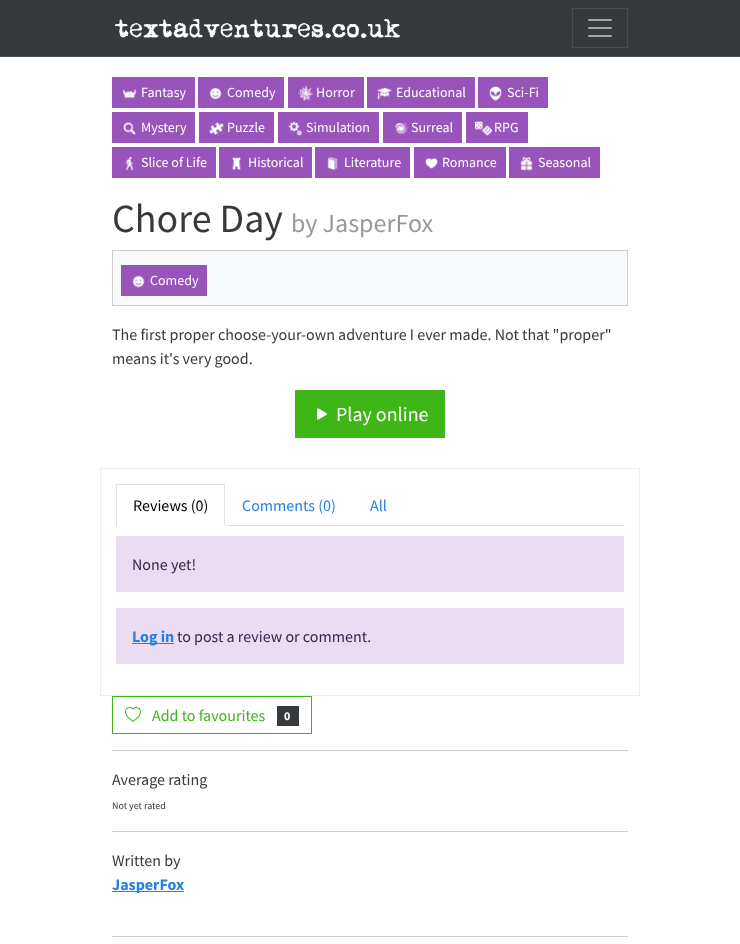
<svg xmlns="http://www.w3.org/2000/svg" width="740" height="944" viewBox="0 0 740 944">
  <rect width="100%" height="100%" fill="rgb(255,255,255)"/>
  <rect x="0" y="0" width="740" height="56" fill="rgb(55,58,60)"/>
  <rect x="0" y="56" width="740" height="1" fill="rgb(73,80,87)"/>
  <image x="115" y="19" width="285" height="19" href="pic1.png"/>
  <rect x="572.5" y="8.5" width="55" height="39" fill="none" stroke="rgb(75,78,80)"/>
  <image x="588" y="19" width="24" height="18" href="pic2.png"/>
  <rect x="112" y="77" width="83" height="31" fill="rgb(153,84,187)"/>
  <image x="122" y="89" width="15" height="10" href="pic3.png"/>
  <text x="141" y="97" font-family="Source Sans Pro" font-size="14" fill="rgb(255,255,255)">Fantasy</text>
  <rect x="198" y="77" width="86" height="31" fill="rgb(153,84,187)"/>
  <image x="209" y="87" width="13" height="13" href="pic4.png"/>
  <text x="227" y="97" font-family="Source Sans Pro" font-size="14" fill="rgb(255,255,255)">Comedy</text>
  <rect x="288" y="77" width="76" height="31" fill="rgb(153,84,187)"/>
  <image x="298" y="86" width="15" height="15" href="pic5.png"/>
  <text x="316" y="97" font-family="Source Sans Pro" font-size="14" fill="rgb(255,255,255)">Horror</text>
  <rect x="367" y="77" width="108" height="31" fill="rgb(153,84,187)"/>
  <image x="377" y="87" width="15" height="13" href="pic6.png"/>
  <text x="396" y="97" font-family="Source Sans Pro" font-size="14" fill="rgb(255,255,255)">Educational</text>
  <rect x="478" y="77" width="70" height="31" fill="rgb(153,84,187)"/>
  <image x="489" y="86" width="13" height="15" href="pic7.png"/>
  <text x="507" y="97" font-family="Source Sans Pro" font-size="14" fill="rgb(255,255,255)">Sci-Fi</text>
  <rect x="112" y="112" width="83" height="31" fill="rgb(153,84,187)"/>
  <image x="123" y="122" width="13" height="13" href="pic8.png"/>
  <text x="141" y="132" font-family="Source Sans Pro" font-size="14" fill="rgb(255,255,255)">Mystery</text>
  <rect x="199" y="112" width="75" height="31" fill="rgb(153,84,187)"/>
  <image x="209" y="122" width="15" height="13" href="pic9.png"/>
  <text x="227" y="132" font-family="Source Sans Pro" font-size="14" fill="rgb(255,255,255)">Puzzle</text>
  <rect x="278" y="112" width="101" height="31" fill="rgb(153,84,187)"/>
  <image x="288" y="121" width="15" height="15" href="pic10.png"/>
  <text x="306" y="132" font-family="Source Sans Pro" font-size="14" fill="rgb(255,255,255)">Simulation</text>
  <rect x="383" y="112" width="79" height="31" fill="rgb(153,84,187)"/>
  <image x="394" y="122" width="14" height="13" href="pic11.png"/>
  <text x="411" y="132" font-family="Source Sans Pro" font-size="14" fill="rgb(255,255,255)">Surreal</text>
  <rect x="466" y="112" width="62" height="31" fill="rgb(153,84,187)"/>
  <image x="475" y="121" width="17" height="15" href="pic12.png"/>
  <text x="494" y="132" font-family="Source Sans Pro" font-size="14" fill="rgb(255,255,255)">RPG</text>
  <rect x="112" y="147" width="104" height="31" fill="rgb(153,84,187)"/>
  <image x="125" y="156" width="9" height="15" href="pic13.png"/>
  <text x="141" y="167" font-family="Source Sans Pro" font-size="14" fill="rgb(255,255,255)">Slice of Life</text>
  <rect x="219" y="147" width="93" height="31" fill="rgb(153,84,187)"/>
  <image x="232" y="157" width="9" height="13" href="pic14.png"/>
  <text x="248" y="167" font-family="Source Sans Pro" font-size="14" fill="rgb(255,255,255)">Historical</text>
  <rect x="315" y="147" width="95" height="31" fill="rgb(153,84,187)"/>
  <image x="327" y="156" width="11" height="15" href="pic15.png"/>
  <text x="344" y="167" font-family="Source Sans Pro" font-size="14" fill="rgb(255,255,255)">Literature</text>
  <rect x="414" y="147" width="92" height="31" fill="rgb(153,84,187)"/>
  <image x="425" y="157" width="13" height="12" href="pic16.png"/>
  <text x="442" y="167" font-family="Source Sans Pro" font-size="14" fill="rgb(255,255,255)">Romance</text>
  <rect x="509" y="147" width="91" height="31" fill="rgb(153,84,187)"/>
  <image x="520" y="156" width="13" height="15" href="pic17.png"/>
  <text x="538" y="167" font-family="Source Sans Pro" font-size="14" fill="rgb(255,255,255)">Seasonal</text>
  <text x="112" y="232" font-family="Source Sans Pro" font-size="40" fill="rgb(55,58,60)">Chore Day</text>
  <text x="291" y="232" font-family="Source Sans Pro" font-size="26" fill="rgb(153,153,153)">by JasperFox</text>
  <rect x="112.5" y="250.5" width="515" height="55" fill="rgb(248,249,250)" stroke="rgb(204,205,206)"/>
  <rect x="121" y="265" width="86" height="31" fill="rgb(153,84,187)"/>
  <image x="132" y="275" width="13" height="13" href="pic4.png"/>
  <text x="150" y="285" font-family="Source Sans Pro" font-size="14" fill="rgb(255,255,255)">Comedy</text>
  <g font-family="Source Sans Pro" font-size="16" fill="rgb(55,58,60)">
    <text>
      <tspan x="112" y="340">The first proper choose-your-own adventure I ever made. Not that "proper"</tspan>
      <tspan x="112" y="364">means it's very good.</tspan>
    </text>
  </g>
  <rect x="295" y="390" width="150" height="48" fill="rgb(63,182,24)"/>
  <image x="317" y="408" width="10" height="12" href="pic18.png"/>
  <text x="336" y="421" font-family="Source Sans Pro" font-size="20" fill="rgb(255,255,255)">Play online</text>
  <rect x="100.5" y="468.5" width="539" height="227" fill="none" stroke="rgb(238,238,238)"/>
  <rect x="225" y="525" width="399" height="1" fill="rgb(222,226,230)"/>
  <rect x="116" y="484" width="109" height="1" fill="rgb(222,226,230)"/>
  <rect x="224" y="484" width="1" height="42" fill="rgb(222,226,230)"/>
  <rect x="224" y="525" width="1" height="1" fill="rgb(255,255,255)"/>
  <rect x="116" y="484" width="1" height="42" fill="rgb(222,226,230)"/>
  <text x="133" y="511" font-family="Source Sans Pro" font-size="16" fill="rgb(0,0,0)">Reviews (0)</text>
  <g font-family="Source Sans Pro" font-size="16" fill="rgb(39,128,227)">
    <text x="242" y="511">Comments (0)</text>
    <text x="370" y="511">All</text>
  </g>
  <rect x="116" y="536" width="508" height="56" fill="rgb(235,221,241)"/>
  <text x="132" y="570" font-family="Source Sans Pro" font-size="16" fill="rgb(61,34,75)">None yet!</text>
  <rect x="116" y="608" width="508" height="56" fill="rgb(235,221,241)"/>
  <rect x="132" y="643" width="42" height="1" fill="rgb(39,128,227)"/>
  <text x="132" y="642" font-family="Source Sans Pro" font-size="16" font-weight="bold" fill="rgb(39,128,227)">Log in</text>
  <text x="177" y="642" font-family="Source Sans Pro" font-size="16" fill="rgb(61,34,75)">to post a review or comment.</text>
  <rect x="112.5" y="696.5" width="199" height="37" fill="none" stroke="rgb(63,182,24)"/>
  <image x="125" y="707" width="16" height="15" href="pic19.png"/>
  <text x="152" y="721" font-family="Source Sans Pro" font-size="16" fill="rgb(63,182,24)">Add to favourites</text>
  <rect x="277" y="706" width="22" height="20" fill="rgb(55,58,60)"/>
  <text x="284" y="720" font-family="Source Sans Pro" font-size="12" font-weight="bold" fill="rgb(255,255,255)">0</text>
  <rect x="112" y="750" width="516" height="1" fill="rgb(205,206,206)"/>
  <text x="112" y="785" font-family="Source Sans Pro" font-size="16" fill="rgb(55,58,60)">Average rating</text>
  <text x="112" y="809" font-family="Source Sans Pro" font-size="10" fill="rgb(55,58,60)">Not yet rated</text>
  <rect x="112" y="831" width="516" height="1" fill="rgb(205,206,206)"/>
  <text x="112" y="866" font-family="Source Sans Pro" font-size="16" fill="rgb(55,58,60)">Written by</text>
  <rect x="112" y="891" width="72" height="1" fill="rgb(39,128,227)"/>
  <text x="112" y="890" font-family="Source Sans Pro" font-size="16" font-weight="bold" fill="rgb(39,128,227)">JasperFox</text>
  <rect x="112" y="936" width="516" height="1" fill="rgb(205,206,206)"/>
</svg>
